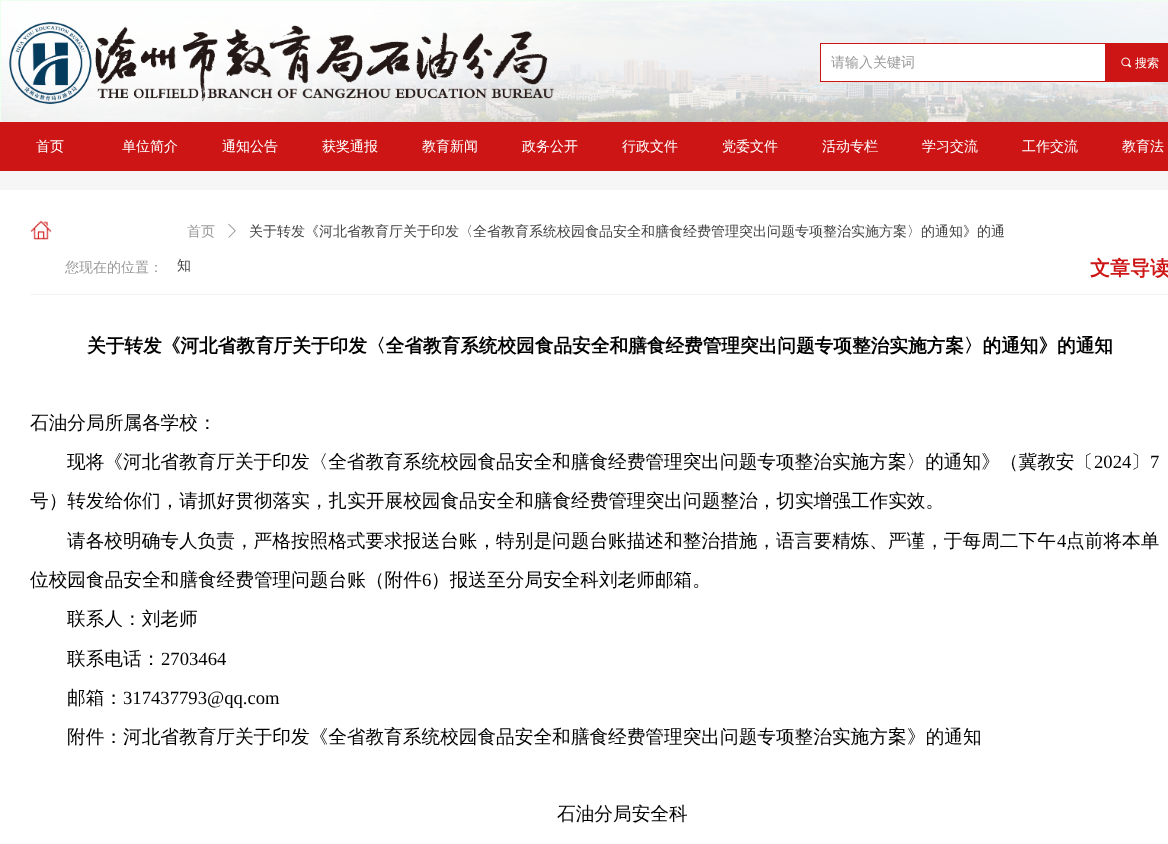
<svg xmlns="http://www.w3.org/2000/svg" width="1168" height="844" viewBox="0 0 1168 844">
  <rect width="100%" height="100%" fill="rgb(246,246,246)"/>
  <image x="0" y="0" width="1168" height="122" href="pic1.png"/>
  <image x="9" y="22" width="545" height="82" href="pic2.png"/>
  <rect x="820.5" y="43.5" width="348" height="38" fill="none" stroke="rgb(205,21,21)"/>
  <rect x="821" y="44" width="284" height="37" fill="rgb(255,255,255)"/>
  <text x="831" y="67" font-family="WenQuanYi Zen Hei" font-size="14" font-weight="500" fill="rgb(153,153,153)">请输入关键词</text>
  <rect x="1105" y="44" width="63" height="37" fill="rgb(205,21,21)"/>
  <image x="1121" y="57" width="11" height="11" href="pic3.png"/>
  <text x="1135" y="67" font-family="WenQuanYi Zen Hei" font-size="12" font-weight="500" fill="rgb(255,255,255)">搜索</text>
  <rect x="0" y="122" width="1168" height="49" fill="rgb(205,21,21)"/>
  <g font-family="WenQuanYi Zen Hei" font-size="14" font-weight="500" fill="rgb(255,255,255)">
    <text x="36" y="151">首页</text>
    <text x="122" y="151">单位简介</text>
    <text x="222" y="151">通知公告</text>
    <text x="322" y="151">获奖通报</text>
    <text x="422" y="151">教育新闻</text>
    <text x="522" y="151">政务公开</text>
    <text x="622" y="151">行政文件</text>
    <text x="722" y="151">党委文件</text>
    <text x="822" y="151">活动专栏</text>
    <text x="922" y="151">学习交流</text>
    <text x="1022" y="151">工作交流</text>
    <text x="1122" y="151">教育法</text>
  </g>
  <rect x="0" y="190" width="1168" height="654" fill="rgb(255,255,255)"/>
  <image x="30" y="220" width="22" height="20" href="pic4.png"/>
  <g font-family="WenQuanYi Zen Hei" font-size="14" font-weight="500" fill="rgb(153,153,153)">
    <text x="65" y="272">您现在的位置：</text>
    <text x="187" y="236">首页</text>
  </g>
  <image x="228" y="223" width="8" height="15" href="pic5.png"/>
  <g font-family="WenQuanYi Zen Hei" font-size="14" font-weight="500" fill="rgb(68,68,68)">
    <text x="249" y="236">关于转发《河北省教育厅关于印发〈全省教育系统校园食品安全和膳食经费管理突出问题专项整治实施方案〉的通知》的通</text>
    <text x="177" y="270">知</text>
  </g>
  <text x="1090" y="275" font-family="WenQuanYi Zen Hei" font-size="20" font-weight="bold" fill="rgb(205,21,21)">文章导读</text>
  <rect x="30" y="294" width="1138" height="1" fill="rgb(243,243,243)"/>
  <g font-family="WenQuanYi Zen Hei" font-size="18.67" font-weight="bold" fill="rgb(0,0,0)">
    <text x="87" y="352">关于转发《河北省教育厅关于印发〈全省教育系统校园食品安全和膳食经费管理突出问题专项整治实施方案〉的通知》</text>
    <text x="1057" y="352">的通知</text>
  </g>
  <g font-family="WenQuanYi Zen Hei" font-size="18.67" font-weight="500" fill="rgb(0,0,0)">
    <text x="30" y="429">石油分局所属各学校：</text>
    <text x="67" y="468">现将《河北省教育厅关于印发〈全省教育系统校园食品安全和膳食经费管理突出问题专项整治实施方案〉的通知》（冀教安〔</text>
  </g>
  <text x="1094" y="468" font-family="Liberation Serif" font-size="18.67" fill="rgb(0,0,0)">2024</text>
  <text x="1131" y="468" font-family="WenQuanYi Zen Hei" font-size="18.67" font-weight="500" fill="rgb(0,0,0)">〕</text>
  <text x="1150" y="468" font-family="Liberation Serif" font-size="18.67" fill="rgb(0,0,0)">7</text>
  <g font-family="WenQuanYi Zen Hei" font-size="18.67" font-weight="500" fill="rgb(0,0,0)">
    <text x="30" y="507">号）转发给你们，请抓好贯彻落实，扎实开展校园食品安全和膳食经费管理突出问题整治，切实增强工作实效。</text>
    <text x="67" y="547">请各校明确专人负责，严格按照格式要求报送台账，特别是问题台账描述和整治措施，语言要精炼、严谨，于每周二下午</text>
  </g>
  <text x="1057" y="547" font-family="Liberation Serif" font-size="18.67" fill="rgb(0,0,0)">4</text>
  <g font-family="WenQuanYi Zen Hei" font-size="18.67" font-weight="500" fill="rgb(0,0,0)">
    <text x="1066" y="547">点前将本单</text>
    <text x="30" y="586">位校园食品安全和膳食经费管理问题台账（附件</text>
  </g>
  <text x="422" y="586" font-family="Liberation Serif" font-size="18.67" fill="rgb(0,0,0)">6</text>
  <g font-family="WenQuanYi Zen Hei" font-size="18.67" font-weight="500" fill="rgb(0,0,0)">
    <text x="431" y="586">）报送至分局安全科刘老师邮箱。</text>
    <text x="67" y="625">联系人：刘老师</text>
    <text x="67" y="665">联系电话：</text>
  </g>
  <text x="161" y="665" font-family="Liberation Serif" font-size="18.67" fill="rgb(0,0,0)">2703464</text>
  <text x="67" y="704" font-family="WenQuanYi Zen Hei" font-size="18.67" font-weight="500" fill="rgb(0,0,0)">邮箱：</text>
  <text x="123" y="704" font-family="Liberation Serif" font-size="18.67" fill="rgb(0,0,0)">317437793@qq.com</text>
  <g font-family="WenQuanYi Zen Hei" font-size="18.67" font-weight="500" fill="rgb(0,0,0)">
    <text x="67" y="743">附件：河北省教育厅关于印发《全省教育系统校园食品安全和膳食经费管理突出问题专项整治实施方案</text>
    <text x="907" y="743">》的通知</text>
    <text x="557" y="820">石油分局安全科</text>
  </g>
</svg>
